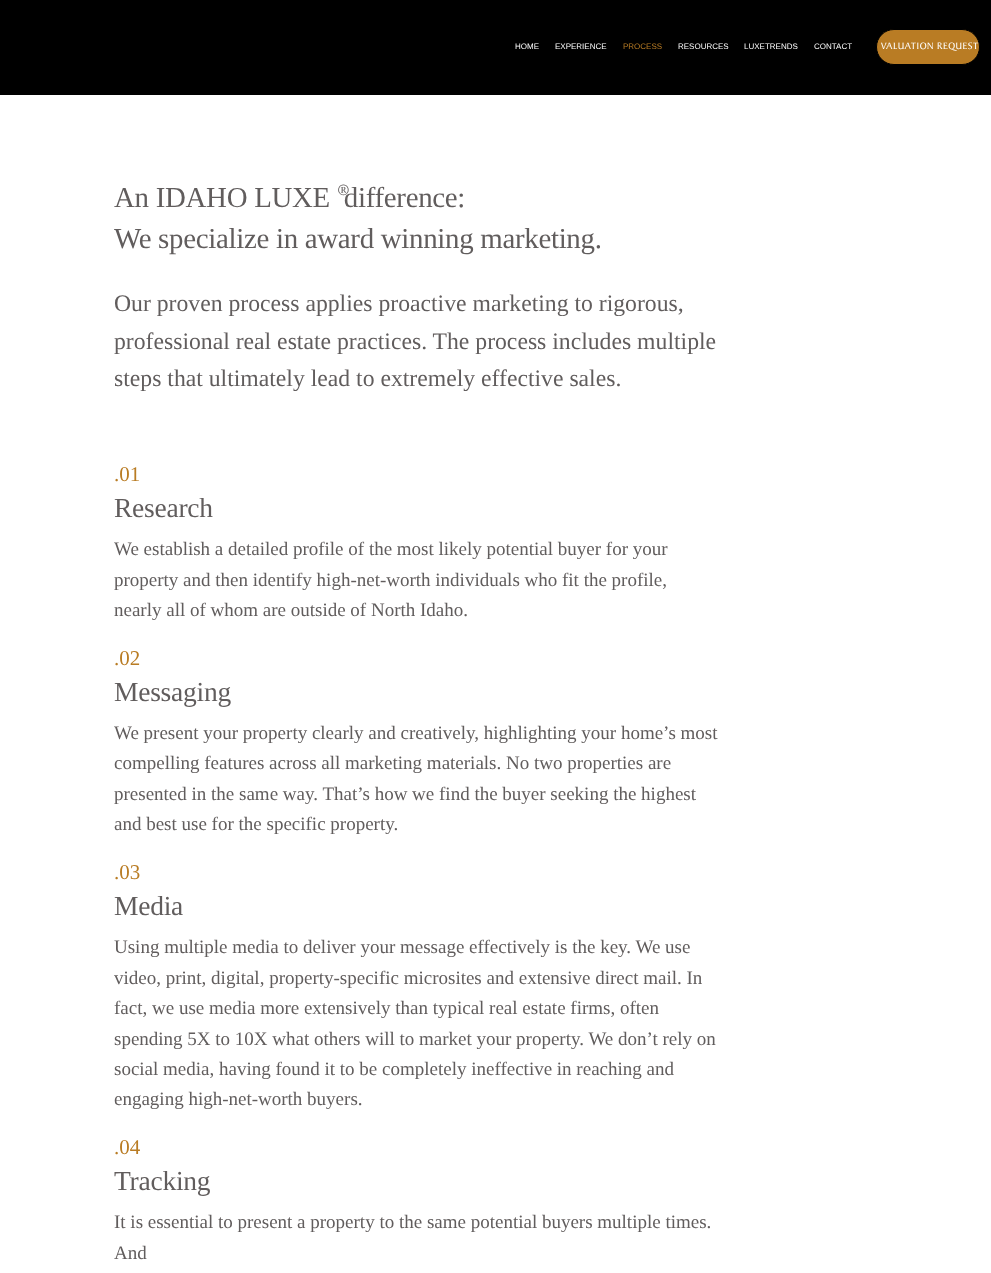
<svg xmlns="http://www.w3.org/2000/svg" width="991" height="1273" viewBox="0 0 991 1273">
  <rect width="100%" height="100%" fill="rgb(255,255,255)"/>
  <rect x="0" y="0" width="991" height="95" fill="rgb(0,0,0)"/>
  <g font-family="Liberation Sans" font-size="8" fill="rgb(255,255,255)">
    <text x="515" y="49">HOME</text>
    <text x="555" y="49">EXPERIENCE</text>
  </g>
  <text x="623" y="49" font-family="Liberation Sans" font-size="8" fill="rgb(185,124,36)">PROCESS</text>
  <g font-family="Liberation Sans" font-size="8" fill="rgb(255,255,255)">
    <text x="678" y="49">RESOURCES</text>
    <text x="744" y="49">LUXETRENDS</text>
    <text x="814" y="49">CONTACT</text>
  </g>
  <rect x="876.5" y="29.5" width="103" height="35" rx="17.5" fill="rgb(185,124,36)" stroke="rgb(0,0,0)"/>
  <text x="881" y="49" font-family="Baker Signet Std" font-size="10" letter-spacing="0.5" fill="rgb(255,255,255)">VALUATION REQUEST</text>
  <text x="114" y="207" font-family="Liberation Serif" font-size="28.9" letter-spacing="-0.3" fill="rgb(97,93,93)" xml:space="preserve">An IDAHO LUXE  difference:</text>
  <text x="337" y="195" font-family="Baker Signet Std" font-size="16" fill="rgb(97,93,93)">®</text>
  <text x="114" y="248" font-family="Liberation Serif" font-size="28.9" letter-spacing="-0.3" fill="rgb(97,93,93)">We specialize in award winning marketing.</text>
  <g font-family="Liberation Serif" font-size="23.7" fill="rgb(97,93,93)">
    <text>
      <tspan x="114" y="311">Our proven process applies proactive marketing to rigorous,</tspan>
      <tspan x="114" y="349">professional real estate practices. The process includes multiple</tspan>
      <tspan x="114" y="386">steps that ultimately lead to extremely effective sales.</tspan>
    </text>
  </g>
  <text x="114" y="481" font-family="Liberation Serif" font-size="21" fill="rgb(185,124,36)">.01</text>
  <text x="114" y="517" font-family="Liberation Serif" font-size="27.5" letter-spacing="-0.25" fill="rgb(97,93,93)">Research</text>
  <g font-family="Liberation Serif" font-size="19" fill="rgb(97,93,93)">
    <text>
      <tspan x="114" y="555">We establish a detailed profile of the most likely potential buyer for your</tspan>
      <tspan x="114" y="586">property and then identify high-net-worth individuals who fit the profile,</tspan>
      <tspan x="114" y="616">nearly all of whom are outside of North Idaho.</tspan>
    </text>
  </g>
  <text x="114" y="665" font-family="Liberation Serif" font-size="21" fill="rgb(185,124,36)">.02</text>
  <text x="114" y="701" font-family="Liberation Serif" font-size="27.5" letter-spacing="-0.25" fill="rgb(97,93,93)">Messaging</text>
  <g font-family="Liberation Serif" font-size="19" fill="rgb(97,93,93)">
    <text>
      <tspan x="114" y="739">We present your property clearly and creatively, highlighting your home’s most</tspan>
      <tspan x="114" y="769">compelling features across all marketing materials. No two properties are</tspan>
      <tspan x="114" y="800">presented in the same way. That’s how we find the buyer seeking the highest</tspan>
      <tspan x="114" y="830">and best use for the specific property.</tspan>
    </text>
  </g>
  <text x="114" y="879" font-family="Liberation Serif" font-size="21" fill="rgb(185,124,36)">.03</text>
  <text x="114" y="915" font-family="Liberation Serif" font-size="27.5" letter-spacing="-0.25" fill="rgb(97,93,93)">Media</text>
  <g font-family="Liberation Serif" font-size="19" fill="rgb(97,93,93)">
    <text>
      <tspan x="114" y="953">Using multiple media to deliver your message effectively is the key. We use</tspan>
      <tspan x="114" y="984">video, print, digital, property-specific microsites and extensive direct mail. In</tspan>
      <tspan x="114" y="1014">fact, we use media more extensively than typical real estate firms, often</tspan>
      <tspan x="114" y="1045">spending 5X to 10X what others will to market your property. We don’t rely on</tspan>
      <tspan x="114" y="1075">social media, having found it to be completely ineffective in reaching and</tspan>
      <tspan x="114" y="1105">engaging high-net-worth buyers.</tspan>
    </text>
  </g>
  <text x="114" y="1154" font-family="Liberation Serif" font-size="21" fill="rgb(185,124,36)">.04</text>
  <text x="114" y="1190" font-family="Liberation Serif" font-size="27.5" letter-spacing="-0.25" fill="rgb(97,93,93)">Tracking</text>
  <g font-family="Liberation Serif" font-size="19" fill="rgb(97,93,93)">
    <text>
      <tspan x="114" y="1228">It is essential to present a property to the same potential buyers multiple times.</tspan>
      <tspan x="114" y="1259">And</tspan>
    </text>
  </g>
</svg>
